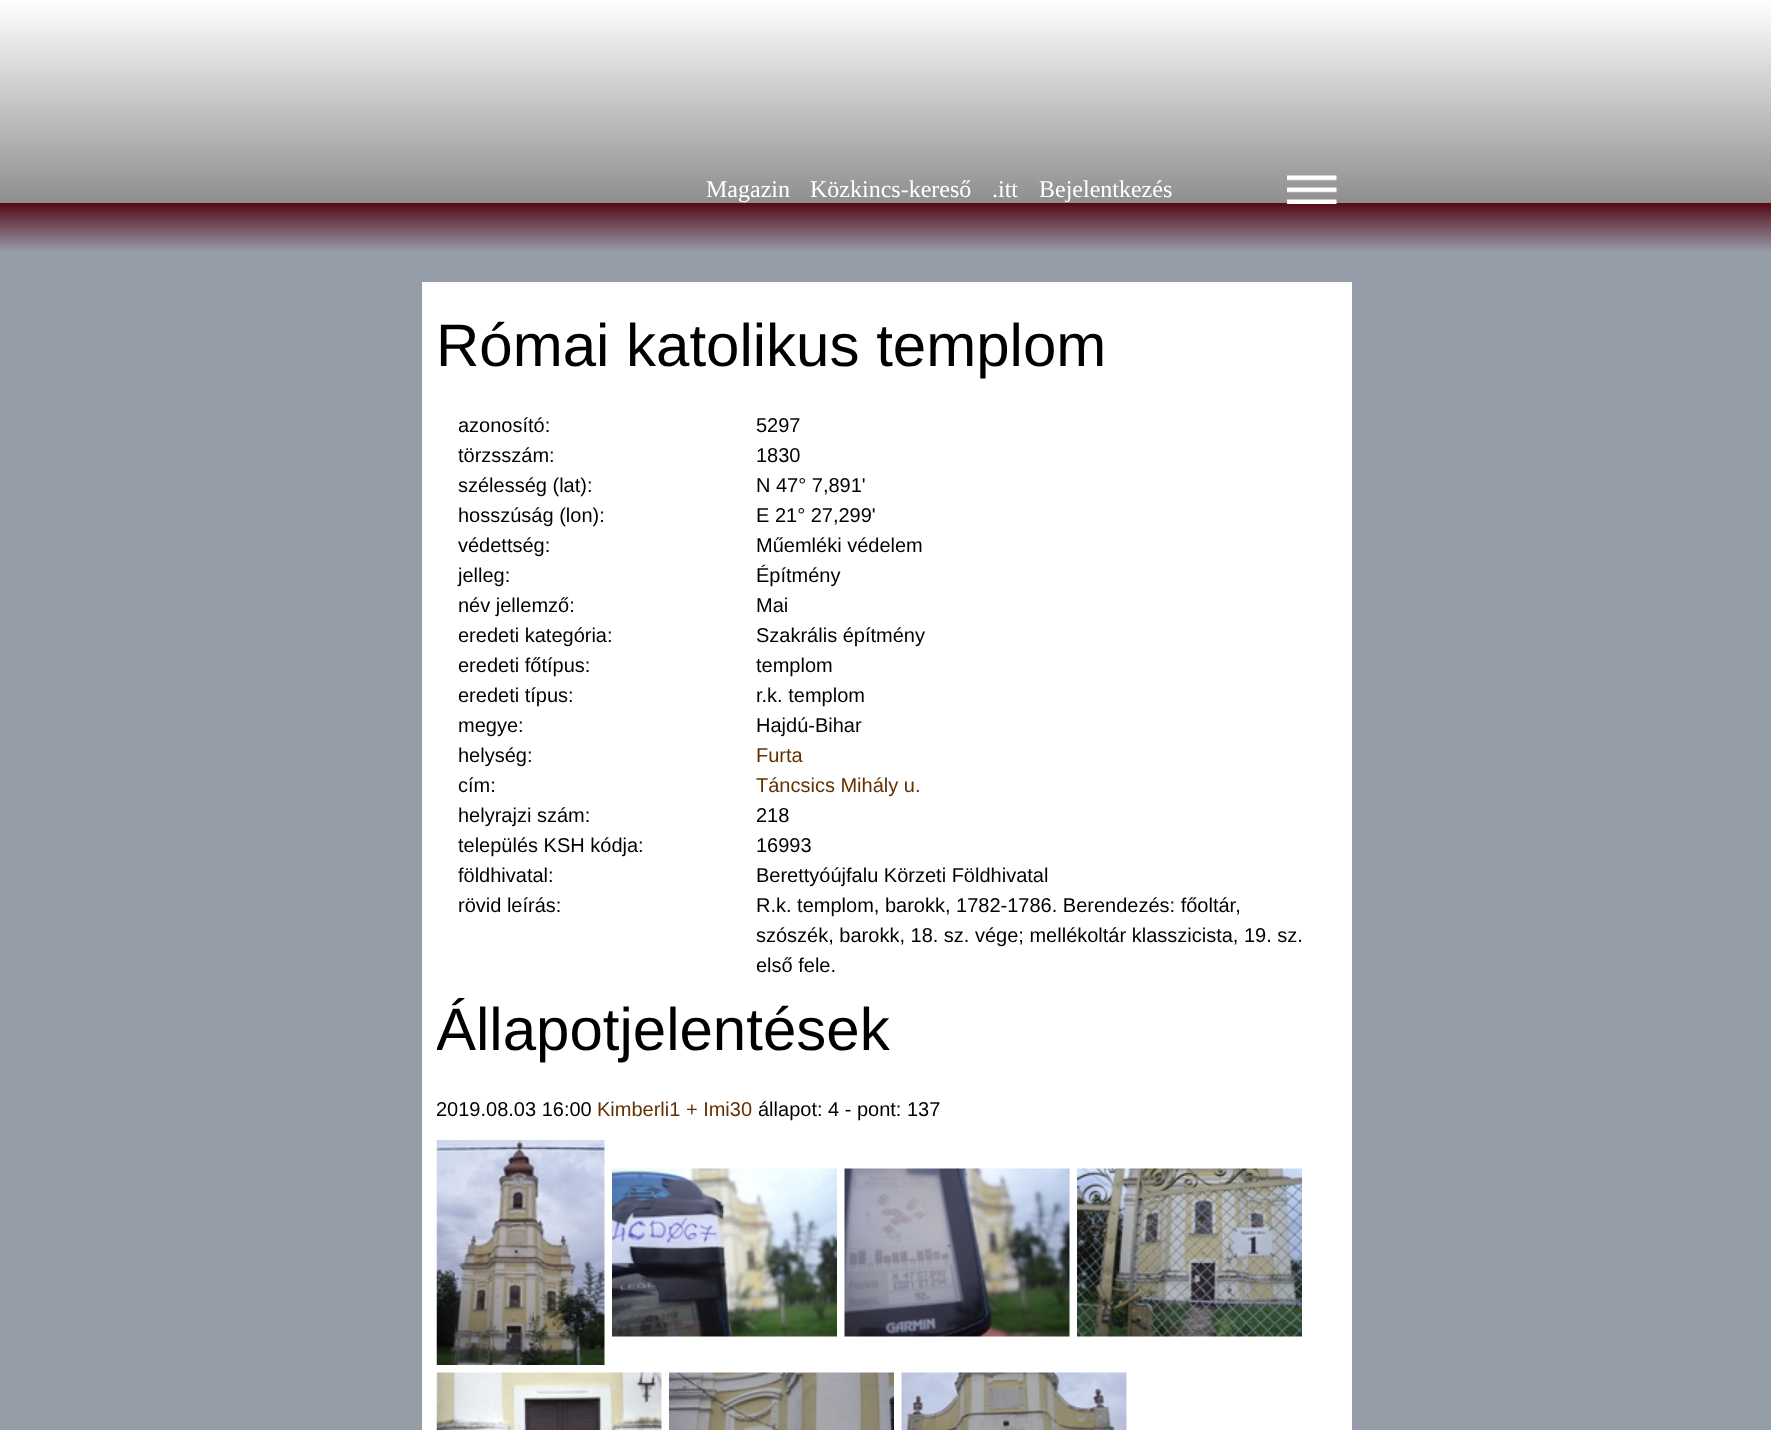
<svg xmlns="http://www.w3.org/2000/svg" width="1771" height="1430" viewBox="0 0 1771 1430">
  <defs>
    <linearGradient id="g1" gradientUnits="userSpaceOnUse" x1="886" y1="0" x2="886" y2="252"><stop offset="0" stop-color="rgb(255,255,255)"/><stop offset="1" stop-color="rgb(115,115,113)"/></linearGradient>
    <linearGradient id="g2" gradientUnits="userSpaceOnUse" x1="886" y1="202" x2="886" y2="252"><stop offset="0" stop-color="rgb(84,6,19)"/><stop offset="1" stop-color="rgb(149,157,169)"/></linearGradient>
    <clipPath id="clip1"><rect x="437" y="297" width="892" height="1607"/></clipPath>
  </defs>
  <rect width="100%" height="100%" fill="rgb(149,157,169)"/>
  <rect x="0" y="0" width="1771" height="203" fill="url(#g1)"/>
  <g font-family="Liberation Serif" font-size="24" fill="rgb(255,255,255)">
    <text x="706" y="197">Magazin</text>
    <text x="810" y="197">Közkincs-kereső</text>
    <text x="992" y="197">.itt</text>
    <text x="1039" y="197">Bejelentkezés</text>
  </g>
  <rect x="0" y="203" width="1771" height="48" fill="url(#g2)"/>
  <image x="1287" y="175" width="50" height="29" href="pic1.png"/>
  <rect x="422" y="282" width="930" height="1148" fill="rgb(255,255,255)"/>
  <text x="436" y="366" font-family="Liberation Sans" font-size="60" fill="rgb(0,0,0)">Római katolikus templom</text>
  <g font-family="Liberation Sans" font-size="20" fill="rgb(0,0,0)">
    <text x="458" y="432">azonosító:</text>
    <text x="756" y="432">5297</text>
    <text x="458" y="462">törzsszám:</text>
    <text x="756" y="462">1830</text>
    <text x="458" y="492">szélesség (lat):</text>
    <text x="756" y="492">N 47° 7,891'</text>
    <text x="458" y="522">hosszúság (lon):</text>
    <text x="756" y="522">E 21° 27,299'</text>
    <text x="458" y="552">védettség:</text>
    <text x="756" y="552">Műemléki védelem</text>
    <text x="458" y="582">jelleg:</text>
    <text x="756" y="582">Építmény</text>
    <text x="458" y="612">név jellemző:</text>
    <text x="756" y="612">Mai</text>
    <text x="458" y="642">eredeti kategória:</text>
    <text x="756" y="642">Szakrális építmény</text>
    <text x="458" y="672">eredeti főtípus:</text>
    <text x="756" y="672">templom</text>
    <text x="458" y="702">eredeti típus:</text>
    <text x="756" y="702">r.k. templom</text>
    <text x="458" y="732">megye:</text>
    <text x="756" y="732">Hajdú-Bihar</text>
    <text x="458" y="762">helység:</text>
  </g>
  <text x="756" y="762" font-family="Liberation Sans" font-size="20" fill="rgb(100,48,0)">Furta</text>
  <text x="458" y="792" font-family="Liberation Sans" font-size="20" fill="rgb(0,0,0)">cím:</text>
  <text x="756" y="792" font-family="Liberation Sans" font-size="20" fill="rgb(100,48,0)">Táncsics Mihály u.</text>
  <g font-family="Liberation Sans" font-size="20" fill="rgb(0,0,0)">
    <text x="458" y="822">helyrajzi szám:</text>
    <text x="756" y="822">218</text>
    <text x="458" y="852">település KSH kódja:</text>
    <text x="756" y="852">16993</text>
    <text x="458" y="882">földhivatal:</text>
    <text x="756" y="882">Berettyóújfalu Körzeti Földhivatal</text>
    <text x="458" y="912">rövid leírás:</text>
    <text>
      <tspan x="756" y="912">R.k. templom, barokk, 1782-1786. Berendezés: főoltár,</tspan>
      <tspan x="756" y="942">szószék, barokk, 18. sz. vége; mellékoltár klasszicista, 19. sz.</tspan>
      <tspan x="756" y="972">első fele.</tspan>
    </text>
  </g>
  <g clip-path="url(#clip1)">
    <text x="436" y="1050" font-family="Liberation Sans" font-size="60" fill="rgb(0,0,0)">Állapotjelentések</text>
  </g>
  <text x="436" y="1116" font-family="Liberation Sans" font-size="20" fill="rgb(0,0,0)">2019.08.03 16:00</text>
  <text x="597" y="1116" font-family="Liberation Sans" font-size="20" fill="rgb(100,48,0)">Kimberli1 + Imi30</text>
  <text x="758" y="1116" font-family="Liberation Sans" font-size="20" fill="rgb(0,0,0)">állapot: 4 - pont: 137</text>
  <image x="436" y="1140" width="169" height="225" href="pic2.png"/>
  <image x="612" y="1168" width="225" height="169" href="pic3.png"/>
  <image x="844" y="1168" width="226" height="169" href="pic4.png"/>
  <image x="1077" y="1168" width="225" height="169" href="pic5.png"/>
  <image x="436" y="1372" width="226" height="58" href="pic6.png"/>
  <image x="669" y="1372" width="225" height="58" href="pic7.png"/>
  <image x="901" y="1372" width="226" height="58" href="pic8.png"/>
</svg>
